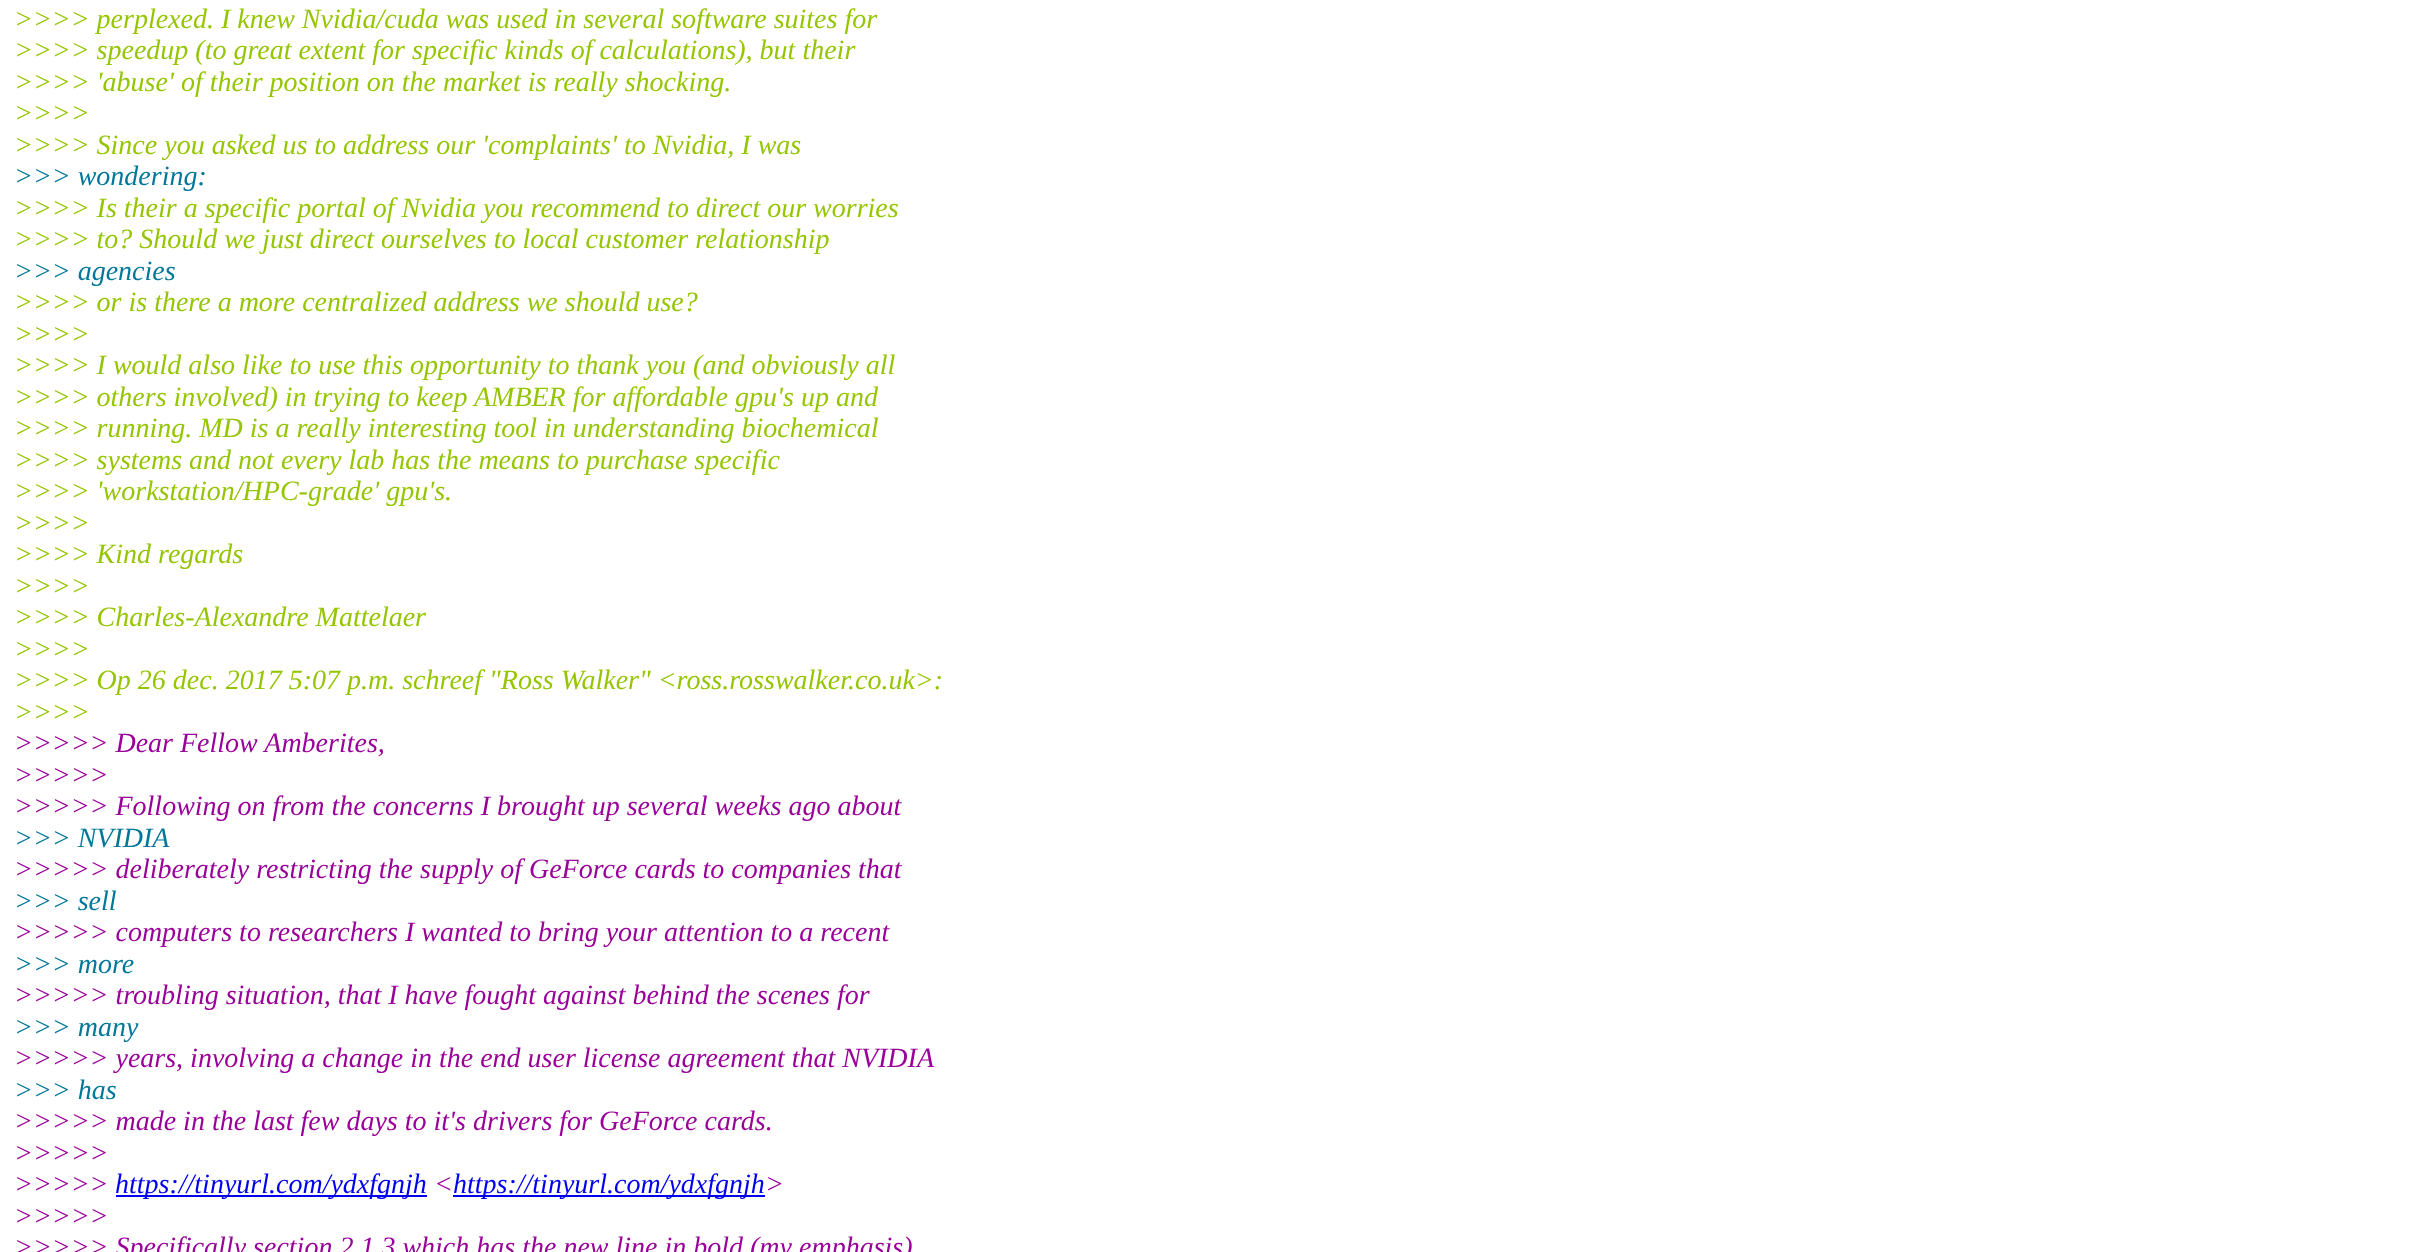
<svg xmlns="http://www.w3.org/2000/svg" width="2427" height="1252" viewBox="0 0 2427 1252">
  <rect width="100%" height="100%" fill="rgb(255,255,255)"/>
  <g font-family="Liberation Serif" font-size="28" font-style="italic" fill="rgb(149,197,0)">
    <text>
      <tspan x="14" y="28">&gt;&gt;&gt;&gt; perplexed. I knew Nvidia/cuda was used in several software suites for</tspan>
      <tspan x="14" y="59">&gt;&gt;&gt;&gt; speedup (to great extent for specific kinds of calculations), but their</tspan>
      <tspan x="14" y="91">&gt;&gt;&gt;&gt; 'abuse' of their position on the market is really shocking.</tspan>
      <tspan x="14" y="122">&gt;&gt;&gt;&gt;</tspan>
      <tspan x="14" y="154">&gt;&gt;&gt;&gt; Since you asked us to address our 'complaints' to Nvidia, I was</tspan>
    </text>
  </g>
  <text x="14" y="185" font-family="Liberation Serif" font-size="28" font-style="italic" fill="rgb(0,119,153)">&gt;&gt;&gt; wondering:</text>
  <g font-family="Liberation Serif" font-size="28" font-style="italic" fill="rgb(149,197,0)">
    <text>
      <tspan x="14" y="217">&gt;&gt;&gt;&gt; Is their a specific portal of Nvidia you recommend to direct our worries</tspan>
      <tspan x="14" y="248">&gt;&gt;&gt;&gt; to? Should we just direct ourselves to local customer relationship</tspan>
    </text>
  </g>
  <text x="14" y="280" font-family="Liberation Serif" font-size="28" font-style="italic" fill="rgb(0,119,153)">&gt;&gt;&gt; agencies</text>
  <g font-family="Liberation Serif" font-size="28" font-style="italic" fill="rgb(149,197,0)">
    <text>
      <tspan x="14" y="311">&gt;&gt;&gt;&gt; or is there a more centralized address we should use?</tspan>
      <tspan x="14" y="343">&gt;&gt;&gt;&gt;</tspan>
      <tspan x="14" y="374">&gt;&gt;&gt;&gt; I would also like to use this opportunity to thank you (and obviously all</tspan>
      <tspan x="14" y="406">&gt;&gt;&gt;&gt; others involved) in trying to keep AMBER for affordable gpu's up and</tspan>
      <tspan x="14" y="437">&gt;&gt;&gt;&gt; running. MD is a really interesting tool in understanding biochemical</tspan>
      <tspan x="14" y="469">&gt;&gt;&gt;&gt; systems and not every lab has the means to purchase specific</tspan>
      <tspan x="14" y="500">&gt;&gt;&gt;&gt; 'workstation/HPC-grade' gpu's.</tspan>
      <tspan x="14" y="532">&gt;&gt;&gt;&gt;</tspan>
      <tspan x="14" y="563">&gt;&gt;&gt;&gt; Kind regards</tspan>
      <tspan x="14" y="595">&gt;&gt;&gt;&gt;</tspan>
      <tspan x="14" y="626">&gt;&gt;&gt;&gt; Charles-Alexandre Mattelaer</tspan>
      <tspan x="14" y="658">&gt;&gt;&gt;&gt;</tspan>
      <tspan x="14" y="689">&gt;&gt;&gt;&gt; Op 26 dec. 2017 5:07 p.m. schreef "Ross Walker" &lt;ross.rosswalker.co.uk&gt;:</tspan>
      <tspan x="14" y="721">&gt;&gt;&gt;&gt;</tspan>
    </text>
  </g>
  <g font-family="Liberation Serif" font-size="28" font-style="italic" fill="rgb(153,0,153)">
    <text>
      <tspan x="14" y="752">&gt;&gt;&gt;&gt;&gt; Dear Fellow Amberites,</tspan>
      <tspan x="14" y="784">&gt;&gt;&gt;&gt;&gt;</tspan>
      <tspan x="14" y="815">&gt;&gt;&gt;&gt;&gt; Following on from the concerns I brought up several weeks ago about</tspan>
    </text>
  </g>
  <text x="14" y="847" font-family="Liberation Serif" font-size="28" font-style="italic" fill="rgb(0,119,153)">&gt;&gt;&gt; NVIDIA</text>
  <text x="14" y="878" font-family="Liberation Serif" font-size="28" font-style="italic" fill="rgb(153,0,153)">&gt;&gt;&gt;&gt;&gt; deliberately restricting the supply of GeForce cards to companies that</text>
  <text x="14" y="910" font-family="Liberation Serif" font-size="28" font-style="italic" fill="rgb(0,119,153)">&gt;&gt;&gt; sell</text>
  <text x="14" y="941" font-family="Liberation Serif" font-size="28" font-style="italic" fill="rgb(153,0,153)">&gt;&gt;&gt;&gt;&gt; computers to researchers I wanted to bring your attention to a recent</text>
  <text x="14" y="973" font-family="Liberation Serif" font-size="28" font-style="italic" fill="rgb(0,119,153)">&gt;&gt;&gt; more</text>
  <text x="14" y="1004" font-family="Liberation Serif" font-size="28" font-style="italic" fill="rgb(153,0,153)">&gt;&gt;&gt;&gt;&gt; troubling situation, that I have fought against behind the scenes for</text>
  <text x="14" y="1036" font-family="Liberation Serif" font-size="28" font-style="italic" fill="rgb(0,119,153)">&gt;&gt;&gt; many</text>
  <text x="14" y="1067" font-family="Liberation Serif" font-size="28" font-style="italic" fill="rgb(153,0,153)">&gt;&gt;&gt;&gt;&gt; years, involving a change in the end user license agreement that NVIDIA</text>
  <text x="14" y="1099" font-family="Liberation Serif" font-size="28" font-style="italic" fill="rgb(0,119,153)">&gt;&gt;&gt; has</text>
  <g font-family="Liberation Serif" font-size="28" font-style="italic" fill="rgb(153,0,153)">
    <text>
      <tspan x="14" y="1130">&gt;&gt;&gt;&gt;&gt; made in the last few days to it's drivers for GeForce cards.</tspan>
      <tspan x="14" y="1162">&gt;&gt;&gt;&gt;&gt;</tspan>
      <tspan x="14" y="1193">&gt;&gt;&gt;&gt;&gt;</tspan>
    </text>
  </g>
  <rect x="116" y="1195" width="311" height="2" fill="rgb(0,0,238)"/>
  <text x="115" y="1193" font-family="Liberation Serif" font-size="28" font-style="italic" fill="rgb(0,0,238)">https://tinyurl.com/ydxfgnjh</text>
  <text x="434" y="1193" font-family="Liberation Serif" font-size="28" font-style="italic" fill="rgb(153,0,153)">&lt;</text>
  <rect x="453" y="1195" width="312" height="2" fill="rgb(0,0,238)"/>
  <text x="453" y="1193" font-family="Liberation Serif" font-size="28" font-style="italic" fill="rgb(0,0,238)">https://tinyurl.com/ydxfgnjh</text>
  <g font-family="Liberation Serif" font-size="28" font-style="italic" fill="rgb(153,0,153)">
    <text x="765" y="1193">&gt;</text>
    <text>
      <tspan x="14" y="1225">&gt;&gt;&gt;&gt;&gt;</tspan>
      <tspan x="14" y="1256">&gt;&gt;&gt;&gt;&gt; Specifically section 2.1.3 which has the new line in bold (my emphasis)</tspan>
    </text>
  </g>
</svg>
